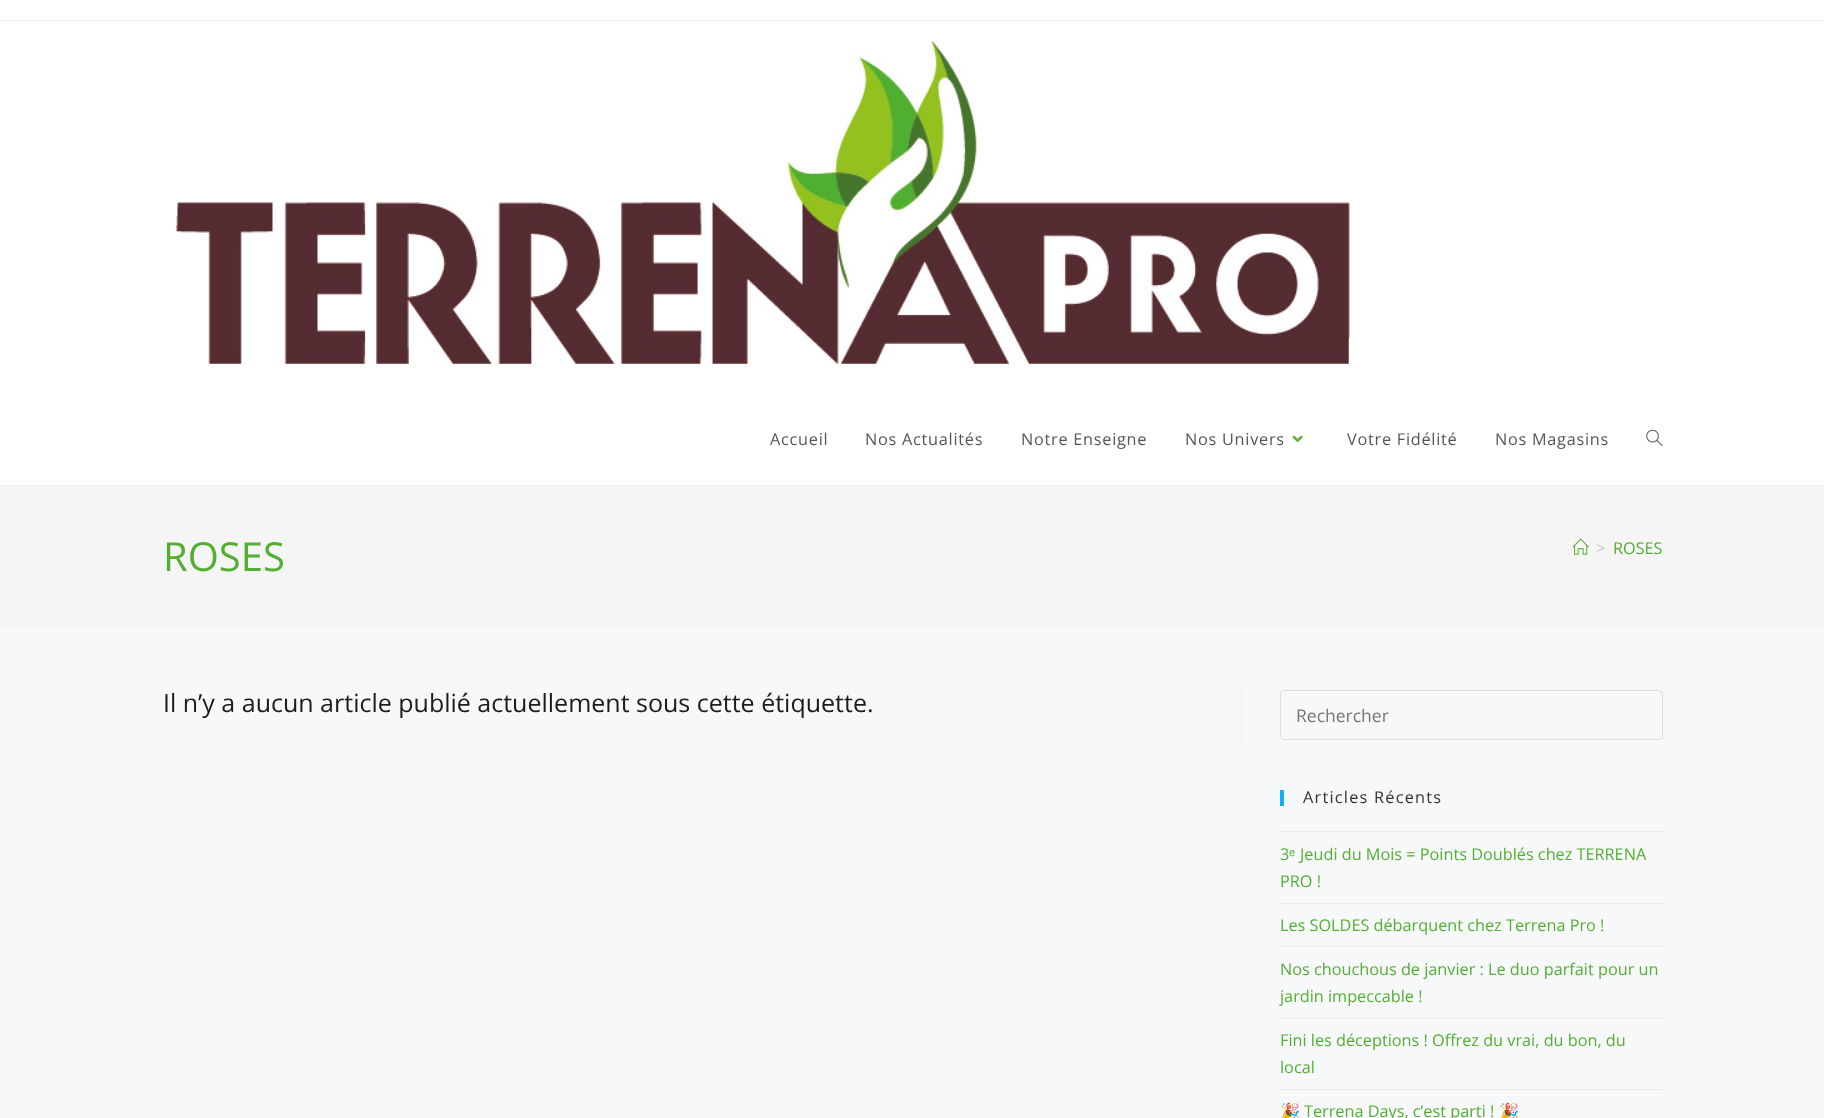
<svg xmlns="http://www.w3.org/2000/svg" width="1824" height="1118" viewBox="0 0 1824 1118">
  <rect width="100%" height="100%" fill="rgb(247,248,250)"/>
  <rect x="0" y="0" width="1824" height="20" fill="rgb(255,255,255)"/>
  <rect x="0" y="20" width="1824" height="1" fill="rgb(241,241,241)"/>
  <rect x="0" y="21" width="1824" height="464" fill="rgb(255,255,255)"/>
  <rect x="0" y="485" width="1824" height="1" fill="rgb(241,241,241)"/>
  <image x="176" y="41" width="1175" height="325" href="pic1.png"/>
  <g font-family="Open Sans" font-size="16.25" letter-spacing="0.75" fill="rgb(85,85,85)">
    <text x="770" y="445">Accueil</text>
    <text x="865" y="445">Nos Actualités</text>
    <text x="1021" y="445">Notre Enseigne</text>
    <text x="1185" y="445">Nos Univers</text>
  </g>
  <image x="1292" y="435" width="11" height="8" href="pic2.png"/>
  <g font-family="Open Sans" font-size="16.25" letter-spacing="0.75" fill="rgb(85,85,85)">
    <text x="1347" y="445">Votre Fidélité</text>
    <text x="1495" y="445">Nos Magasins</text>
  </g>
  <image x="1646" y="429" width="17" height="17" href="pic3.png"/>
  <rect x="0" y="486" width="1824" height="142" fill="rgb(245,245,245)"/>
  <text x="163" y="571" font-family="Open Sans" font-size="40" fill="rgb(83,175,50)">ROSES</text>
  <image x="1573" y="538" width="16" height="17" href="pic4.png"/>
  <text x="1596" y="554" font-family="Open Sans" font-size="16.25" fill="rgb(198,198,198)">&gt;</text>
  <text x="1613" y="554" font-family="Open Sans" font-size="16.25" fill="rgb(83,175,50)">ROSES</text>
  <rect x="1241" y="690" width="1" height="53" fill="rgb(241,241,241)"/>
  <text x="163" y="712" font-family="Open Sans" font-size="25" fill="rgb(28,28,25)">Il n’y a aucun article publié actuellement sous cette étiquette.</text>
  <rect x="1280.5" y="690.5" width="382" height="49" rx="3.5" fill="none" stroke="rgb(221,221,221)"/>
  <text x="1296" y="722" font-family="Open Sans" font-size="17.5" fill="rgb(117,117,117)">Rechercher</text>
  <rect x="1280" y="790" width="4" height="16" fill="rgb(19,175,240)"/>
  <text x="1303" y="803" font-family="Open Sans" font-size="16.25" letter-spacing="1.25" fill="rgb(51,51,51)">Articles Récents</text>
  <rect x="1280" y="831" width="383" height="1" fill="rgb(233,233,233)"/>
  <rect x="1280" y="903" width="383" height="1" fill="rgb(233,233,233)"/>
  <text x="1280" y="860" font-family="Open Sans" font-size="16.25" fill="rgb(83,175,50)">3</text>
  <text x="1289" y="860" font-family="Liberation Sans" font-size="16.25" fill="rgb(83,175,50)">ᵉ</text>
  <g font-family="Open Sans" font-size="16.25" fill="rgb(83,175,50)">
    <text x="1300" y="860">Jeudi du Mois = Points Doublés chez TERRENA</text>
    <text x="1280" y="887">PRO !</text>
  </g>
  <rect x="1280" y="946" width="383" height="1" fill="rgb(233,233,233)"/>
  <text x="1280" y="931" font-family="Open Sans" font-size="16.25" fill="rgb(83,175,50)">Les SOLDES débarquent chez Terrena Pro !</text>
  <rect x="1280" y="1018" width="383" height="1" fill="rgb(233,233,233)"/>
  <g font-family="Open Sans" font-size="16.25" fill="rgb(83,175,50)">
    <text>
      <tspan x="1280" y="975">Nos chouchous de janvier : Le duo parfait pour un</tspan>
      <tspan x="1280" y="1002">jardin impeccable !</tspan>
    </text>
  </g>
  <rect x="1280" y="1089" width="383" height="1" fill="rgb(233,233,233)"/>
  <g font-family="Open Sans" font-size="16.25" fill="rgb(83,175,50)">
    <text>
      <tspan x="1280" y="1046">Fini les déceptions ! Offrez du vrai, du bon, du</tspan>
      <tspan x="1280" y="1073">local</tspan>
    </text>
  </g>
  <text x="1280" y="1117" font-family="Noto Color Emoji" font-size="16.25" fill="rgb(83,175,50)">🎉</text>
  <text x="1304" y="1117" font-family="Open Sans" font-size="16.25" fill="rgb(83,175,50)">Terrena Days, c’est parti !</text>
  <text x="1499" y="1117" font-family="Noto Color Emoji" font-size="16.25" fill="rgb(83,175,50)">🎉</text>
</svg>
